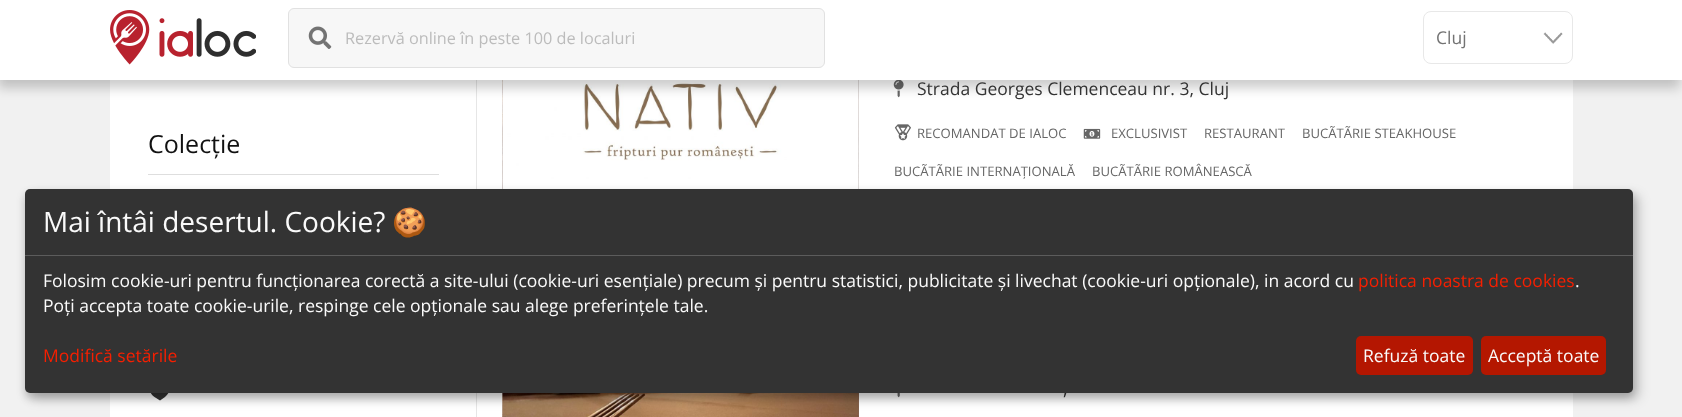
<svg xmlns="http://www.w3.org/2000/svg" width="1682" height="417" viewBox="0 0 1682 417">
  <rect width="100%" height="100%" fill="rgb(241,241,241)"/>
  <rect x="110" y="80" width="1463" height="337" fill="rgb(255,255,255)"/>
  <rect x="476" y="80" width="1" height="337" fill="rgb(230,230,230)"/>
  <image x="502" y="80" width="357" height="109" href="pic4.png"/>
  <image x="502" y="80" width="357" height="109" href="pic5.png"/>
  <image x="893" y="80" width="11" height="18" href="pic6.png"/>
  <rect x="-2" y="8" width="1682" height="80" fill="rgba(0,0,0,0.2)" filter="blur(6px)"/>
  <rect x="0" y="0" width="1682" height="80" fill="rgb(255,255,255)"/>
  <image x="110" y="10" width="146" height="55" href="pic1.png"/>
  <rect x="288.5" y="8.5" width="536" height="59" rx="5.5" fill="rgb(247,247,247)" stroke="rgb(225,225,225)"/>
  <image x="308" y="26" width="24" height="23" href="pic2.png"/>
  <text x="345" y="44" font-family="Open Sans" font-size="16.25" fill="rgb(188,188,188)">Rezervă online în peste 100 de localuri</text>
  <image x="1543" y="32" width="20" height="12" href="pic3.png"/>
  <rect x="1423.5" y="11.5" width="149" height="52" rx="7.5" fill="none" stroke="rgb(232,232,232)"/>
  <text x="1436" y="44" font-family="Open Sans" font-size="17.5" fill="rgb(115,115,115)">Cluj</text>
  <rect x="148" y="174" width="291" height="1" fill="rgb(222,222,222)"/>
  <text x="148" y="153" font-family="Open Sans" font-size="25" fill="rgb(17,17,17)">Colecție</text>
  <path d="M160 385.5C164.5 377.5 177.5 386 165 397L160 400.5L154.5 397C142 386.5 154.5 377.5 160 385.5Z" fill="rgb(51,51,51)"/>
  <text x="917" y="95" font-family="Open Sans" font-size="17.5" fill="rgb(51,51,51)">Strada Georges Clemenceau nr. 3, Cluj</text>
  <image x="894" y="124" width="17" height="17" href="pic7.png"/>
  <text x="917" y="138" font-family="Open Sans" font-size="13.1" fill="rgb(102,102,102)">RECOMANDAT DE IALOC</text>
  <image x="1083" y="128" width="18" height="11" href="pic8.png"/>
  <g font-family="Open Sans" font-size="13.1" fill="rgb(102,102,102)">
    <text x="1111" y="138">EXCLUSIVIST</text>
    <text x="1204" y="138">RESTAURANT</text>
    <text x="1302" y="138">BUCÃTÃRIE STEAKHOUSE</text>
    <text x="894" y="176">BUCÃTÃRIE INTERNAȚIONALĂ</text>
    <text x="1092" y="176">BUCÃTÃRIE ROMÂNEASCĂ</text>
  </g>
  <image x="502" y="393" width="357" height="24" href="pic9.png"/>
  <image x="502" y="393" width="357" height="24" href="pic10.png"/>
  <image x="897" y="393" width="3" height="5" href="pic11.png"/>
  <text x="1063" y="395" font-family="Open Sans" font-size="17.5" fill="rgb(51,51,51)">,</text>
  <rect x="31" y="195" width="1608" height="204" rx="5" fill="rgba(0,0,0,0.19)" filter="blur(6px)"/>
  <rect x="25" y="194" width="1608" height="204" rx="5" fill="rgba(0,0,0,0.2)" filter="blur(4px)"/>
  <rect x="25" y="189" width="1608" height="204" rx="5" fill="rgb(51,51,51)"/>
  <rect x="25" y="255" width="1608" height="1" fill="rgb(92,92,92)"/>
  <text x="43" y="232" font-family="Open Sans" font-size="28" fill="rgb(250,250,250)">Mai întâi desertul. Cookie?</text>
  <text x="392" y="232" font-family="Noto Color Emoji" font-size="28" fill="rgb(250,250,250)">🍪</text>
  <text x="43" y="287" font-family="Open Sans" font-size="17.5" fill="rgb(250,250,250)">Folosim cookie-uri pentru funcționarea corectă a site-ului (cookie-uri esențiale) precum și pentru statistici, publicitate și livechat (cookie-uri opționale), in acord cu</text>
  <text x="1358" y="287" font-family="Open Sans" font-size="17.5" fill="rgb(246,31,0)">politica noastra de cookies</text>
  <g font-family="Open Sans" font-size="17.5" fill="rgb(250,250,250)">
    <text x="1575" y="287">.</text>
    <text x="43" y="312">Poți accepta toate cookie-urile, respinge cele opționale sau alege preferințele tale.</text>
  </g>
  <text x="43" y="362" font-family="Open Sans" font-size="17.5" fill="rgb(246,31,0)">Modifică setările</text>
  <rect x="1356" y="336" width="117" height="39" rx="5" fill="rgb(180,22,1)"/>
  <text x="1363" y="362" font-family="Open Sans" font-size="17.5" fill="rgb(250,250,250)">Refuză toate</text>
  <rect x="1481" y="336" width="125" height="39" rx="5" fill="rgb(180,23,0)"/>
  <text x="1488" y="362" font-family="Open Sans" font-size="17.5" fill="rgb(250,250,250)">Acceptă toate</text>
</svg>
